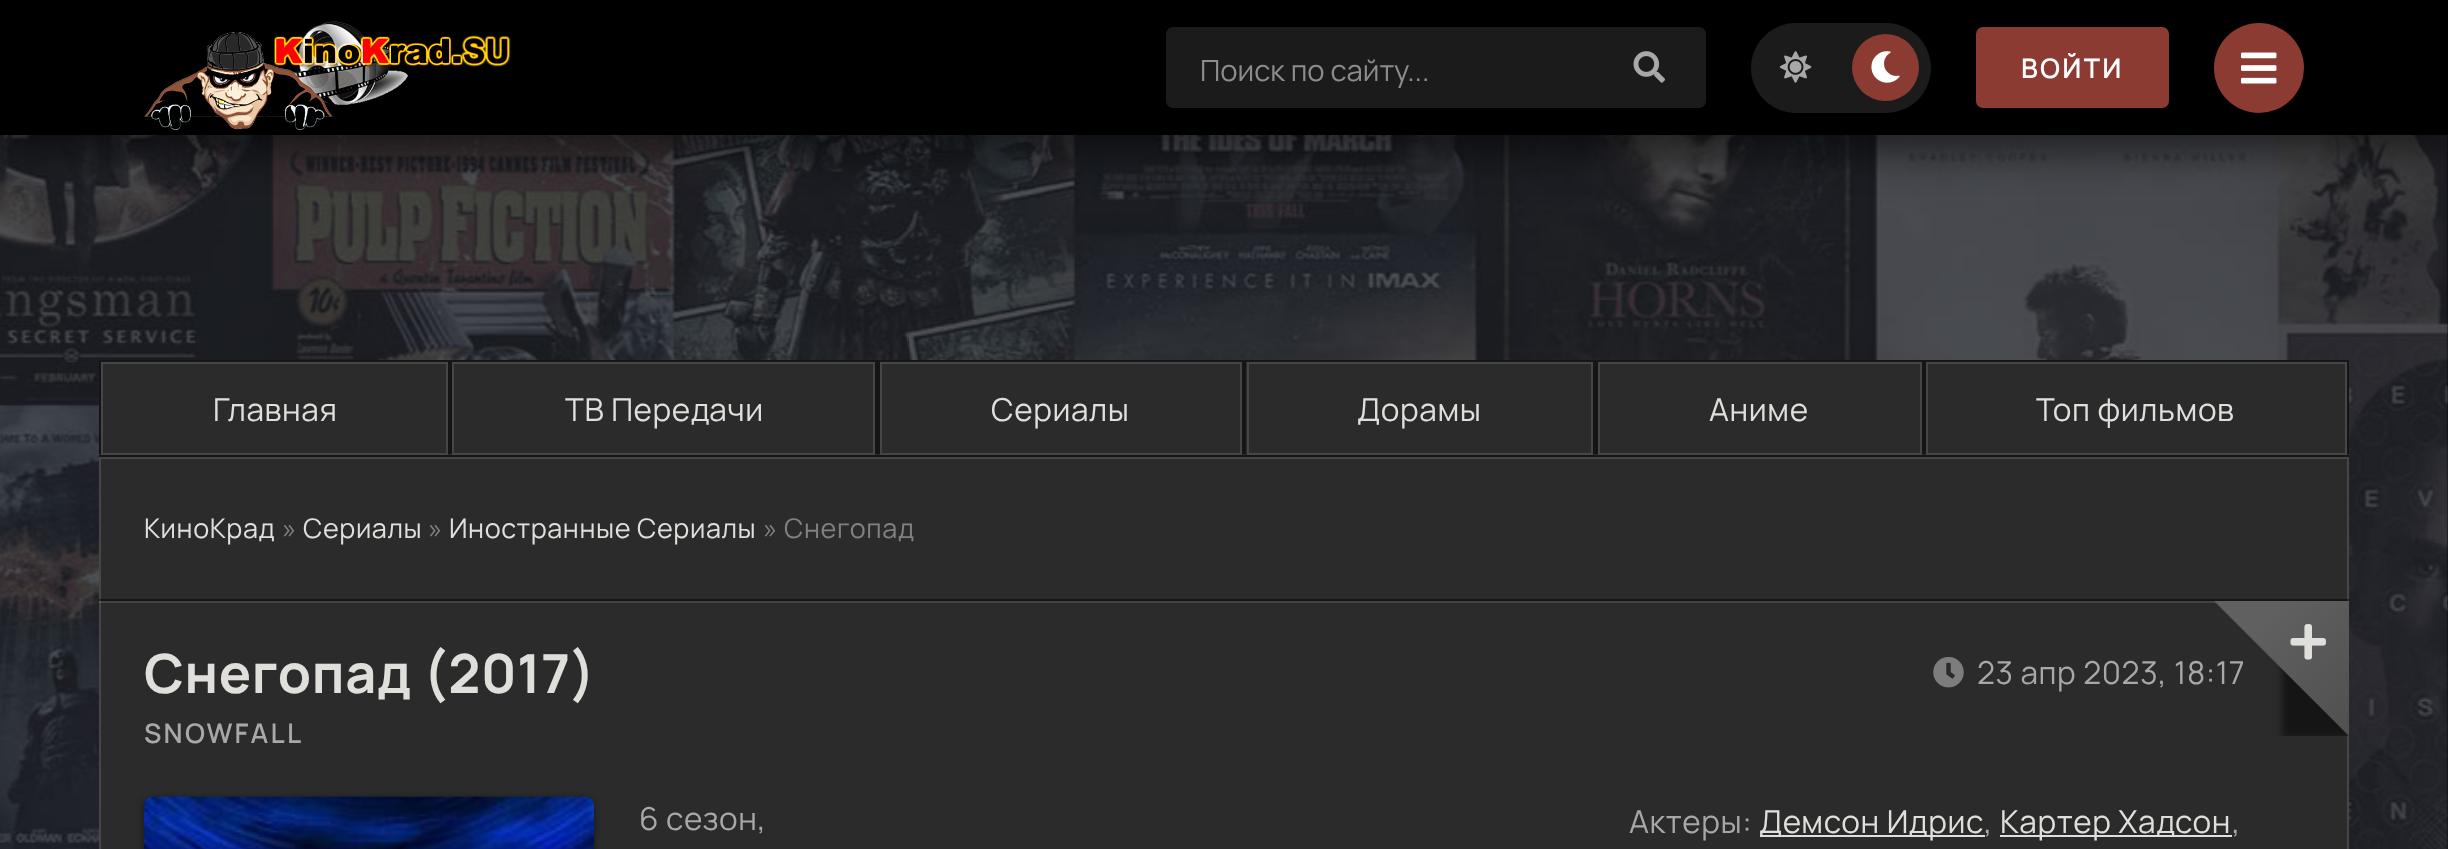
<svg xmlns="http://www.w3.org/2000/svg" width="2448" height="849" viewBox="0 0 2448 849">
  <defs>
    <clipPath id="clip1"><rect x="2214" y="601" width="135" height="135"/></clipPath>
    <clipPath id="clip2"><rect x="2214" y="601" width="135" height="135"/></clipPath>
    <linearGradient id="g1" gradientUnits="userSpaceOnUse" x1="2282" y1="601" x2="2417" y2="736"><stop offset="0" stop-color="rgb(96,96,96)"/><stop offset="1" stop-color="rgb(74,74,74)"/></linearGradient>
  </defs>
  <rect width="100%" height="100%" fill="rgb(0,0,0)"/>
  <image x="0" y="135" width="2448" height="714" href="pic1.png"/>
  <rect x="0" y="18" width="2448" height="135" fill="rgba(0,0,0,0.5)" filter="blur(18px)"/>
  <image x="144" y="21" width="367" height="109" href="pic2.png"/>
  <rect x="1166" y="27" width="540" height="81" rx="7" fill="rgb(27,27,27)"/>
  <text x="1200" y="81" font-family="Manrope" font-size="29.25" font-weight="200" fill="rgb(140,140,140)">Поиск по сайту...</text>
  <image x="1633" y="51" width="32" height="32" href="pic3.png"/>
  <rect x="1751" y="23" width="180" height="90" rx="45" fill="rgb(27,27,27)"/>
  <image x="1779" y="51" width="33" height="32" href="pic4.png"/>
  <circle cx="1885.5" cy="67.5" r="33.5" fill="rgb(139,59,50)"/>
  <image x="1871" y="51" width="29" height="32" href="pic5.png"/>
  <rect x="1976" y="27" width="193" height="81" rx="7" fill="rgb(139,59,50)"/>
  <text x="2021" y="78" font-family="'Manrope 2'" font-size="27" font-weight="200" letter-spacing="2.25" fill="rgb(255,255,255)">ВОЙТИ</text>
  <circle cx="2259" cy="68" r="45" fill="rgb(139,59,50)"/>
  <image x="2241" y="52" width="36" height="32" href="pic6.png"/>
  <rect x="99" y="360" width="2250" height="95" fill="rgb(43,43,43)"/>
  <rect x="102" y="363" width="345" height="91" fill="none" stroke="rgb(70,70,70)" stroke-width="2"/>
  <path d="M99 360H450L448 362H101Z" fill="rgb(22,22,22)"/>
  <path d="M450 360V454H448V362Z" fill="rgba(0,0,0,0.5)"/>
  <path d="M99 454V360L101 362V454Z" fill="rgba(0,0,0,0.5)"/>
  <text x="213" y="421" font-family="Manrope" font-size="31.5" font-weight="200" letter-spacing="0.6" fill="rgb(224,223,220)">Главная</text>
  <rect x="453" y="363" width="421" height="91" fill="none" stroke="rgb(70,70,70)" stroke-width="2"/>
  <path d="M450 360H878L875 362H452Z" fill="rgb(22,22,22)"/>
  <path d="M878 360V454H875V362Z" fill="rgba(0,0,0,0.5)"/>
  <path d="M450 454V360L452 362V454Z" fill="rgba(0,0,0,0.5)"/>
  <text x="565" y="421" font-family="Manrope" font-size="31.5" font-weight="200" letter-spacing="0.6" fill="rgb(224,223,220)">ТВ Передачи</text>
  <rect x="881" y="363" width="360" height="91" fill="none" stroke="rgb(70,70,70)" stroke-width="2"/>
  <path d="M878 360H1244L1242 362H880Z" fill="rgb(22,22,22)"/>
  <path d="M1244 360V454H1242V362Z" fill="rgba(0,0,0,0.5)"/>
  <path d="M878 454V360L880 362V454Z" fill="rgba(0,0,0,0.5)"/>
  <text x="991" y="421" font-family="Manrope" font-size="31.5" font-weight="200" letter-spacing="0.6" fill="rgb(224,223,220)">Сериалы</text>
  <rect x="1248" y="363" width="344" height="91" fill="none" stroke="rgb(70,70,70)" stroke-width="2"/>
  <path d="M1244 360H1595L1593 362H1246Z" fill="rgb(22,22,22)"/>
  <path d="M1595 360V454H1593V362Z" fill="rgba(0,0,0,0.5)"/>
  <path d="M1244 454V360L1246 362V454Z" fill="rgba(0,0,0,0.5)"/>
  <text x="1357" y="421" font-family="Manrope" font-size="31.5" font-weight="200" letter-spacing="0.6" fill="rgb(224,223,220)">Дорамы</text>
  <rect x="1599" y="363" width="322" height="91" fill="none" stroke="rgb(70,70,70)" stroke-width="2"/>
  <path d="M1595 360H1924L1922 362H1598Z" fill="rgb(22,22,22)"/>
  <path d="M1924 360V454H1922V362Z" fill="rgba(0,0,0,0.5)"/>
  <path d="M1595 454V360L1598 362V454Z" fill="rgba(0,0,0,0.5)"/>
  <text x="1709" y="421" font-family="Manrope" font-size="31.5" font-weight="200" letter-spacing="0.6" fill="rgb(224,223,220)">Аниме</text>
  <rect x="1927" y="363" width="419" height="91" fill="none" stroke="rgb(70,70,70)" stroke-width="2"/>
  <path d="M1924 360H2349L2347 362H1926Z" fill="rgb(22,22,22)"/>
  <path d="M2349 360V454H2347V362Z" fill="rgba(0,0,0,0.5)"/>
  <path d="M1924 454V360L1926 362V454Z" fill="rgba(0,0,0,0.5)"/>
  <text x="2036" y="421" font-family="Manrope" font-size="31.5" font-weight="200" letter-spacing="0.6" fill="rgb(224,223,220)">Топ фильмов</text>
  <rect x="100" y="458" width="2248" height="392" fill="rgb(43,43,43)" stroke="rgb(70,70,70)" stroke-width="2"/>
  <rect x="99" y="455" width="2250" height="2" fill="rgb(22,22,22)"/>
  <text x="144" y="538" font-family="Manrope" font-size="27" font-weight="200" letter-spacing="0.6" fill="rgb(224,223,220)">КиноКрад</text>
  <text x="282" y="538" font-family="Manrope" font-size="27" font-weight="200" letter-spacing="0.6" fill="rgb(129,129,129)">»</text>
  <text x="303" y="538" font-family="Manrope" font-size="27" font-weight="200" letter-spacing="0.6" fill="rgb(224,223,220)">Сериалы</text>
  <text x="428" y="538" font-family="Manrope" font-size="27" font-weight="200" letter-spacing="0.6" fill="rgb(129,129,129)">»</text>
  <text x="449" y="538" font-family="Manrope" font-size="27" font-weight="200" letter-spacing="0.6" fill="rgb(224,223,220)">Иностранные Сериалы</text>
  <text x="763" y="538" font-family="Manrope" font-size="27" font-weight="200" letter-spacing="0.6" fill="rgb(129,129,129)">» Снегопад</text>
  <rect x="99" y="601" width="2117" height="2" fill="rgba(255,255,255,0.12)"/>
  <rect x="99" y="599" width="2250" height="2" fill="rgba(0,0,0,0.5)"/>
  <text x="144" y="693" font-family="'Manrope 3'" font-size="54" font-weight="200" letter-spacing="0.6" fill="rgb(224,223,220)">Снегопад (2017)</text>
  <text x="144" y="743" font-family="'Manrope 2'" font-size="27" font-weight="200" letter-spacing="2.25" fill="rgb(168,168,168)">SNOWFALL</text>
  <image x="1933" y="656" width="31" height="32" href="pic7.png"/>
  <g font-family="Manrope" font-size="31.5" font-weight="200" letter-spacing="0.6" fill="rgb(168,168,168)">
    <text x="1977" y="684">23 апр 2023, 18:17</text>
    <text x="639" y="830">6 сезон,</text>
  </g>
  <g clip-path="url(#clip1)">
    <rect x="2282" y="603" width="135" height="135" fill="rgba(0,0,0,0.5)" filter="blur(3.5px)"/>
  </g>
  <g clip-path="url(#clip2)">
    <path d="M2214 601H2349L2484 736H2349Z" fill="url(#g1)"/>
  </g>
  <image x="2290" y="624" width="36" height="36" href="pic8.png"/>
  <rect x="144" y="799" width="450" height="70" rx="9" fill="rgba(0,0,0,0.5)" filter="blur(3.5px)"/>
  <image x="144" y="796" width="450" height="53" href="pic9.png"/>
  <text x="1629" y="833" font-family="Manrope" font-size="31.5" font-weight="200" letter-spacing="0.6" fill="rgb(168,168,168)">Актеры:</text>
  <rect x="1760" y="835" width="225" height="2" fill="rgb(224,223,220)"/>
  <text x="1759" y="833" font-family="Manrope" font-size="31.5" font-weight="200" letter-spacing="0.6" fill="rgb(224,223,220)">Демсон Идрис</text>
  <text x="1984" y="833" font-family="Manrope" font-size="31.5" font-weight="200" letter-spacing="0.6" fill="rgb(168,168,168)">,</text>
  <rect x="2000" y="835" width="232" height="2" fill="rgb(224,223,220)"/>
  <text x="2000" y="833" font-family="Manrope" font-size="31.5" font-weight="200" letter-spacing="0.6" fill="rgb(224,223,220)">Картер Хадсон</text>
  <text x="2232" y="833" font-family="Manrope" font-size="31.5" font-weight="200" letter-spacing="0.6" fill="rgb(168,168,168)">,</text>
</svg>
